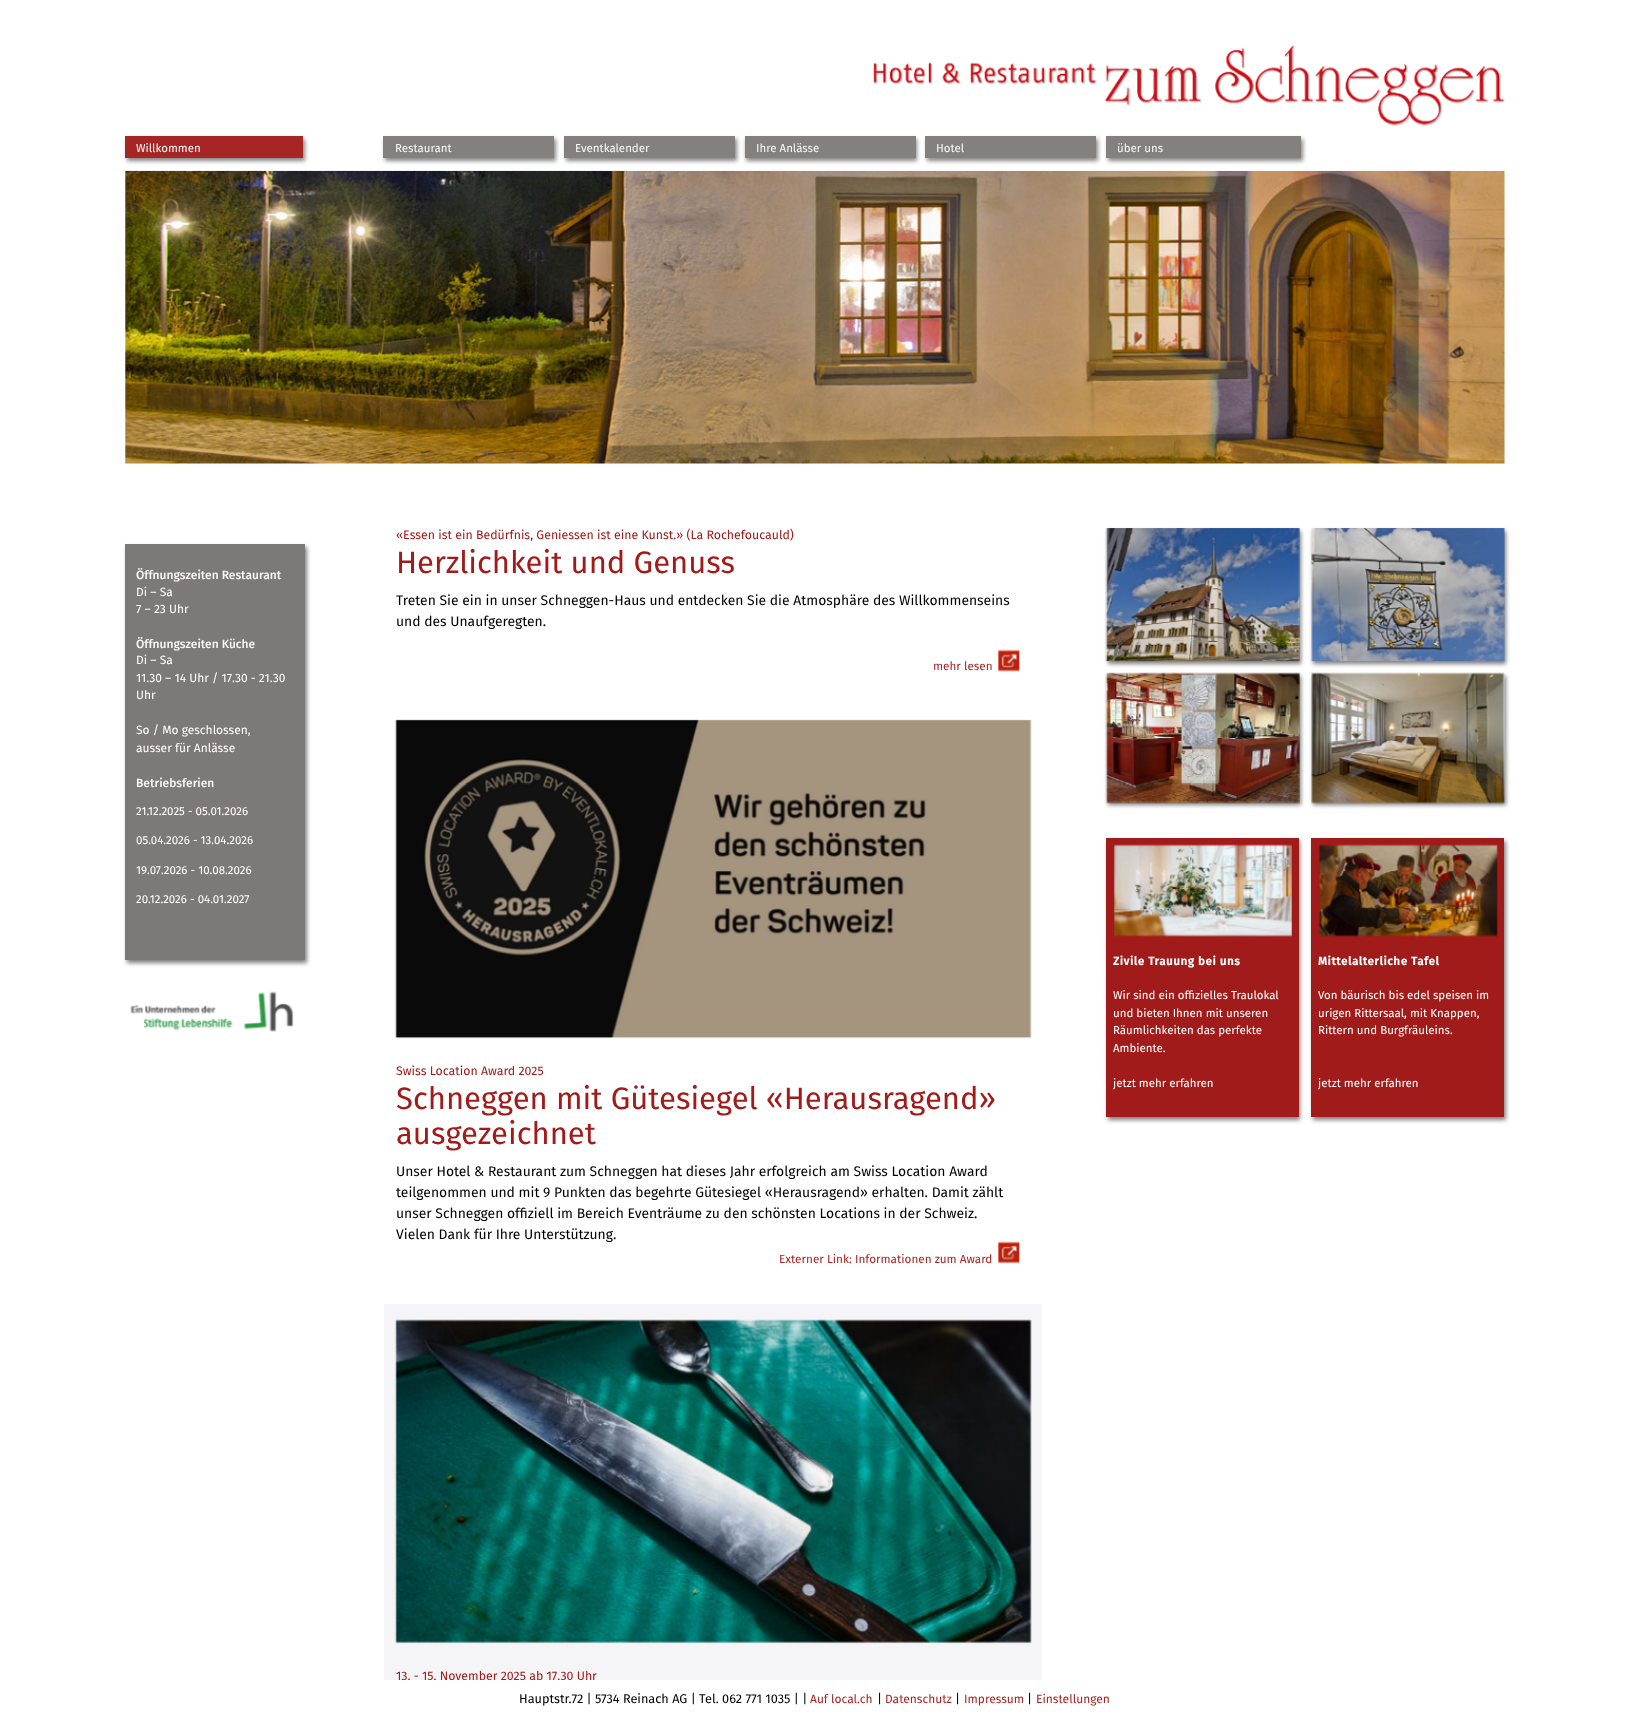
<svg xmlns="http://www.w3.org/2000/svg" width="1629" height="1715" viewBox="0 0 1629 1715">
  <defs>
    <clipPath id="clip1"><path d="M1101 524H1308V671H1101ZM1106 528H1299V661H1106Z" clip-rule="evenodd"/></clipPath>
    <clipPath id="clip2"><path d="M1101 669H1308V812H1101ZM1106 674H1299V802H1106Z" clip-rule="evenodd"/></clipPath>
  </defs>
  <rect width="100%" height="100%" fill="rgb(255,255,255)"/>
  <image x="873" y="45" width="632" height="82" href="pic1.png"/>
  <rect x="127" y="139" width="178" height="22" fill="rgba(13,13,13,0.5)" filter="blur(2px)"/>
  <rect x="125" y="136" width="178" height="22" fill="rgb(165,38,37)"/>
  <text x="136" y="152" font-family="Fira Sans" font-size="11.5" fill="rgb(248,247,247)">Willkommen</text>
  <rect x="385" y="139" width="171" height="22" fill="rgba(13,13,13,0.5)" filter="blur(2px)"/>
  <rect x="383" y="136" width="171" height="22" fill="rgb(131,128,126)"/>
  <text x="395" y="152" font-family="Fira Sans" font-size="11.5" fill="rgb(248,247,247)">Restaurant</text>
  <rect x="566" y="139" width="171" height="22" fill="rgba(13,13,13,0.5)" filter="blur(2px)"/>
  <rect x="564" y="136" width="171" height="22" fill="rgb(131,128,126)"/>
  <text x="575" y="152" font-family="Fira Sans" font-size="11.5" fill="rgb(248,247,247)">Eventkalender</text>
  <rect x="746" y="139" width="171" height="22" fill="rgba(13,13,13,0.5)" filter="blur(2px)"/>
  <rect x="745" y="136" width="171" height="22" fill="rgb(131,128,126)"/>
  <text x="756" y="152" font-family="Fira Sans" font-size="11.5" fill="rgb(248,247,247)">Ihre Anlässe</text>
  <rect x="927" y="139" width="171" height="22" fill="rgba(13,13,13,0.5)" filter="blur(2px)"/>
  <rect x="925" y="136" width="171" height="22" fill="rgb(131,128,126)"/>
  <text x="936" y="152" font-family="Fira Sans" font-size="11.5" fill="rgb(248,247,247)">Hotel</text>
  <rect x="1108" y="139" width="195" height="22" fill="rgba(13,13,13,0.5)" filter="blur(2px)"/>
  <rect x="1106" y="136" width="195" height="22" fill="rgb(131,128,126)"/>
  <text x="1117" y="152" font-family="Fira Sans" font-size="11.5" fill="rgb(248,247,247)">über uns</text>
  <image x="125" y="170" width="1380" height="294" href="pic2.png"/>
  <rect x="127" y="547" width="180" height="416" fill="rgba(0,0,0,0.5)" filter="blur(2px)"/>
  <rect x="125" y="544" width="180" height="416" fill="rgb(124,121,119)"/>
  <text x="136" y="579" font-family="Fira Sans" font-size="12" font-weight="500" fill="rgb(248,247,247)">Öffnungszeiten Restaurant</text>
  <g font-family="Fira Sans" font-size="12" fill="rgb(255,255,255)">
    <text>
      <tspan x="136" y="596">Di – Sa</tspan>
      <tspan x="136" y="613">7 – 23 Uhr</tspan>
    </text>
  </g>
  <text x="136" y="648" font-family="Fira Sans" font-size="12" font-weight="500" fill="rgb(248,247,247)">Öffnungszeiten Küche</text>
  <g font-family="Fira Sans" font-size="12" fill="rgb(255,255,255)">
    <text>
      <tspan x="136" y="664">Di – Sa</tspan>
      <tspan x="136" y="682">11.30 – 14 Uhr / 17.30 - 21.30</tspan>
      <tspan x="136" y="699">Uhr</tspan>
    </text>
    <text>
      <tspan x="136" y="734">So / Mo geschlossen,</tspan>
      <tspan x="136" y="752">ausser für Anlässe</tspan>
    </text>
  </g>
  <text x="136" y="787" font-family="Fira Sans" font-size="12" font-weight="500" fill="rgb(248,247,247)">Betriebsferien</text>
  <g font-family="Fira Sans" font-size="11.5" fill="rgb(255,255,255)">
    <text x="136" y="815">21.12.2025 - 05.01.2026</text>
    <text x="136" y="844">05.04.2026 - 13.04.2026</text>
    <text x="136" y="874">19.07.2026 - 10.08.2026</text>
    <text x="136" y="903">20.12.2026 - 04.01.2027</text>
  </g>
  <image x="130" y="991" width="164" height="41" href="pic3.png"/>
  <text x="396" y="539" font-family="Fira Sans" font-size="12.35" fill="rgb(160,27,25)">«Essen ist ein Bedürfnis, Geniessen ist eine Kunst.» (La Rochefoucauld)</text>
  <text x="396" y="573" font-family="Fira Sans" font-size="31" fill="rgb(160,27,25)">Herzlichkeit und Genuss</text>
  <g font-family="Fira Sans" font-size="13.9" fill="rgb(0,0,0)">
    <text>
      <tspan x="396" y="605">Treten Sie ein in unser Schneggen-Haus und entdecken Sie die Atmosphäre des Willkommenseins</tspan>
      <tspan x="396" y="626">und des Unaufgeregten.</tspan>
    </text>
  </g>
  <text x="933" y="670" font-family="Fira Sans" font-size="11.75" fill="rgb(165,39,37)">mehr lesen</text>
  <image x="997" y="649" width="23" height="23" href="pic4.png"/>
  <image x="395" y="719" width="637" height="320" href="pic5.png"/>
  <text x="396" y="1075" font-family="Fira Sans" font-size="12.35" fill="rgb(160,27,25)">Swiss Location Award 2025</text>
  <g font-family="Fira Sans" font-size="31" fill="rgb(160,27,25)">
    <text>
      <tspan x="396" y="1109">Schneggen mit Gütesiegel «Herausragend»</tspan>
      <tspan x="396" y="1144">ausgezeichnet</tspan>
    </text>
  </g>
  <g font-family="Fira Sans" font-size="13.9" fill="rgb(0,0,0)">
    <text>
      <tspan x="396" y="1176">Unser Hotel &amp; Restaurant zum Schneggen hat dieses Jahr erfolgreich am Swiss Location Award</tspan>
      <tspan x="396" y="1197">teilgenommen und mit 9 Punkten das begehrte Gütesiegel «Herausragend» erhalten. Damit zählt</tspan>
      <tspan x="396" y="1218">unser Schneggen offiziell im Bereich Eventräume zu den schönsten Locations in der Schweiz.</tspan>
      <tspan x="396" y="1239">Vielen Dank für Ihre Unterstützung.</tspan>
    </text>
  </g>
  <text x="779" y="1263" font-family="Fira Sans" font-size="11.75" fill="rgb(165,39,37)">Externer Link: Informationen zum Award</text>
  <image x="997" y="1241" width="23" height="23" href="pic6.png"/>
  <rect x="384" y="1304" width="658" height="376" fill="rgb(245,245,247)"/>
  <image x="395" y="1319" width="637" height="325" href="pic7.png"/>
  <text x="396" y="1680" font-family="Fira Sans" font-size="12.35" fill="rgb(160,27,25)">13. - 15. November 2025 ab 17.30 Uhr</text>
  <g clip-path="url(#clip1)">
    <rect x="1108" y="531" width="193" height="133" fill="rgba(0,0,0,0.5)" filter="blur(2px)"/>
  </g>
  <image x="1105" y="528" width="195" height="134" href="pic8.png"/>
  <rect x="1313" y="531" width="193" height="133" fill="rgba(0,0,0,0.5)" filter="blur(2px)"/>
  <image x="1311" y="528" width="194" height="134" href="pic9.png"/>
  <g clip-path="url(#clip2)">
    <rect x="1108" y="676" width="193" height="129" fill="rgba(0,0,0,0.5)" filter="blur(2px)"/>
  </g>
  <image x="1105" y="672" width="195" height="132" href="pic10.png"/>
  <rect x="1313" y="676" width="193" height="129" fill="rgba(0,0,0,0.5)" filter="blur(2px)"/>
  <image x="1311" y="672" width="194" height="132" href="pic11.png"/>
  <rect x="1108" y="841" width="192" height="279" fill="rgba(0,0,0,0.5)" filter="blur(2px)"/>
  <rect x="1106" y="838" width="193" height="279" fill="rgb(160,27,25)"/>
  <image x="1113" y="844" width="179" height="93" href="pic12.png"/>
  <text x="1113" y="965" font-family="Fira Sans" font-size="11.5" font-weight="bold" letter-spacing="0.6" fill="rgb(255,255,255)">Zivile Trauung bei uns</text>
  <g font-family="Fira Sans" font-size="11.5" fill="rgb(255,255,255)">
    <text>
      <tspan x="1113" y="999">Wir sind ein offizielles Traulokal</tspan>
      <tspan x="1113" y="1017">und bieten Ihnen mit unseren</tspan>
      <tspan x="1113" y="1034">Räumlichkeiten das perfekte</tspan>
      <tspan x="1113" y="1052">Ambiente.</tspan>
    </text>
    <text x="1113" y="1087">jetzt mehr erfahren</text>
  </g>
  <rect x="1313" y="841" width="193" height="279" fill="rgba(0,0,0,0.5)" filter="blur(2px)"/>
  <rect x="1311" y="838" width="193" height="279" fill="rgb(160,27,25)"/>
  <image x="1318" y="844" width="180" height="93" href="pic13.png"/>
  <text x="1318" y="965" font-family="Fira Sans" font-size="11.5" font-weight="bold" letter-spacing="0.6" fill="rgb(255,255,255)">Mittelalterliche Tafel</text>
  <g font-family="Fira Sans" font-size="11.5" fill="rgb(255,255,255)">
    <text>
      <tspan x="1318" y="999">Von bäurisch bis edel speisen im</tspan>
      <tspan x="1318" y="1017">urigen Rittersaal, mit Knappen,</tspan>
      <tspan x="1318" y="1034">Rittern und Burgfräuleins.</tspan>
    </text>
    <text x="1318" y="1087">jetzt mehr erfahren</text>
  </g>
  <rect x="403" y="1680" width="179" height="1" fill="rgb(255,255,255)"/>
  <text x="519" y="1703" font-family="Fira Sans" font-size="12.7" fill="rgb(0,0,0)">Hauptstr.72 | 5734 Reinach AG | Tel. 062 771 1035 | |</text>
  <text x="810" y="1703" font-family="Fira Sans" font-size="12" fill="rgb(165,39,37)">Auf local.ch</text>
  <text x="877" y="1703" font-family="Fira Sans" font-size="12.7" fill="rgb(0,0,0)">|</text>
  <text x="885" y="1703" font-family="Fira Sans" font-size="12" fill="rgb(165,39,37)">Datenschutz</text>
  <text x="955" y="1703" font-family="Fira Sans" font-size="12.7" fill="rgb(0,0,0)">|</text>
  <text x="964" y="1703" font-family="Fira Sans" font-size="12" fill="rgb(165,39,37)">Impressum</text>
  <text x="1027" y="1703" font-family="Fira Sans" font-size="12.7" fill="rgb(0,0,0)">|</text>
  <text x="1036" y="1703" font-family="Fira Sans" font-size="12" fill="rgb(165,39,37)">Einstellungen</text>
</svg>
